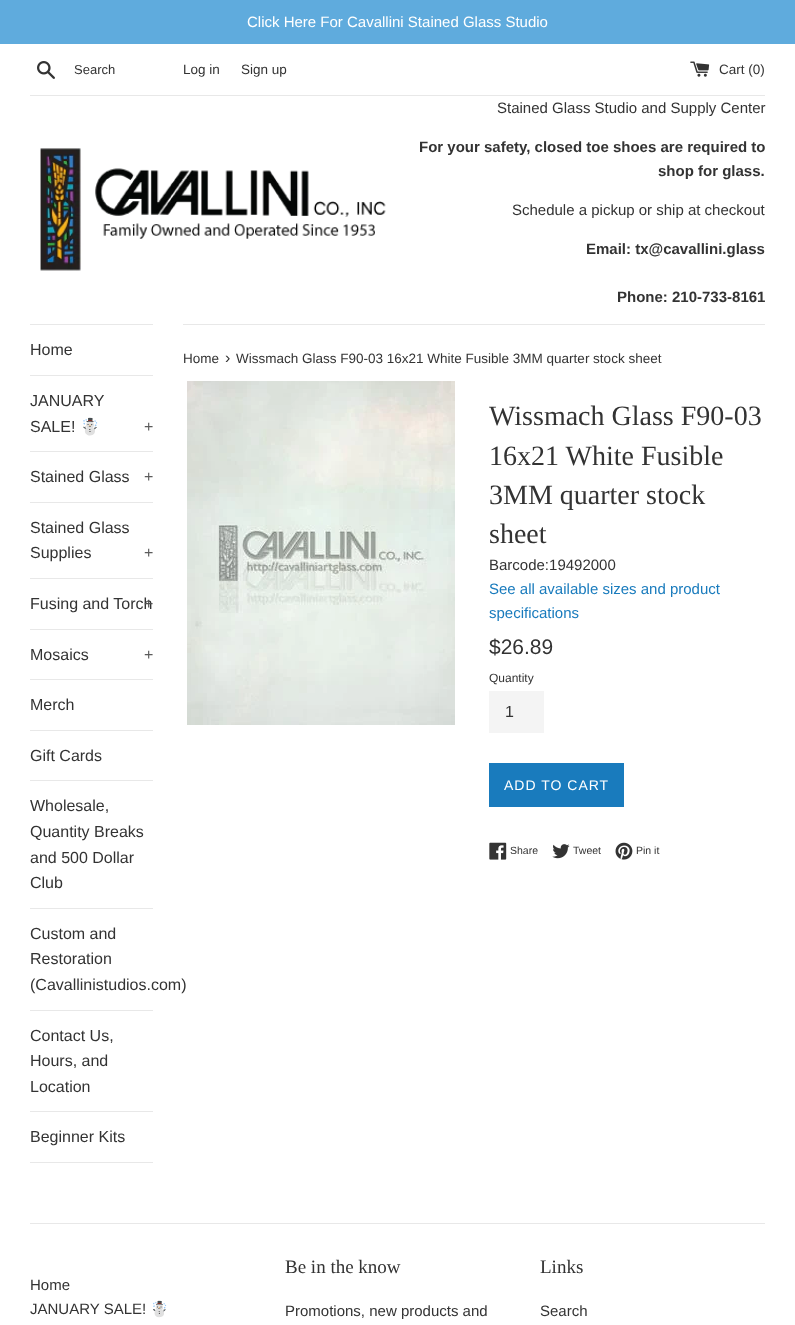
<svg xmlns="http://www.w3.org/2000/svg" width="795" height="1325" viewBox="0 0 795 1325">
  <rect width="100%" height="100%" fill="rgb(255,255,255)"/>
  <rect x="0" y="0" width="795" height="44" fill="rgb(95,171,221)"/>
  <text x="247" y="27" font-family="Liberation Sans" font-size="15" fill="rgb(255,255,255)">Click Here For Cavallini Stained Glass Studio</text>
  <image x="37" y="61" width="18" height="18" href="pic1.png"/>
  <text x="74" y="74" font-family="Liberation Sans" font-size="13" fill="rgb(51,51,51)">Search</text>
  <g font-family="Liberation Sans" font-size="13.5" fill="rgb(51,51,51)">
    <text x="183" y="74">Log in</text>
    <text x="241" y="74">Sign up</text>
  </g>
  <image x="690" y="61" width="20" height="16" href="pic2.png"/>
  <text x="719" y="74" font-family="Liberation Sans" font-size="13.5" fill="rgb(51,51,51)">Cart (0)</text>
  <rect x="30" y="95" width="735" height="1" fill="rgb(232,232,232)"/>
  <image x="40" y="148" width="346" height="123" href="pic3.png"/>
  <text x="497" y="113" font-family="Liberation Sans" font-size="15" fill="rgb(51,51,51)">Stained Glass Studio and Supply Center</text>
  <g font-family="Liberation Sans" font-size="15" font-weight="bold" fill="rgb(51,51,51)">
    <text x="419" y="152">For your safety, closed toe shoes are required to</text>
    <text x="658" y="176">shop for glass.</text>
  </g>
  <text x="512" y="215" font-family="Liberation Sans" font-size="15" fill="rgb(51,51,51)">Schedule a pickup or ship at checkout</text>
  <g font-family="Liberation Sans" font-size="15" font-weight="bold" fill="rgb(51,51,51)">
    <text x="586" y="254">Email: tx@cavallini.glass</text>
    <text x="617" y="302">Phone: 210-733-8161</text>
  </g>
  <rect x="30" y="324" width="123" height="1" fill="rgb(232,232,232)"/>
  <rect x="30" y="375" width="123" height="1" fill="rgb(232,232,232)"/>
  <text x="30" y="355" font-family="Liberation Sans" font-size="16" fill="rgb(51,51,51)">Home</text>
  <rect x="30" y="451" width="123" height="1" fill="rgb(232,232,232)"/>
  <g font-family="Liberation Sans" font-size="16" fill="rgb(51,51,51)">
    <text>
      <tspan x="30" y="406">JANUARY</tspan>
      <tspan x="30" y="432">SALE!</tspan>
    </text>
  </g>
  <text x="80" y="432" font-family="Noto Color Emoji" font-size="16" fill="rgb(51,51,51)">☃️</text>
  <text x="144" y="432" font-family="Liberation Sans" font-size="16" fill="rgb(92,92,92)">+</text>
  <rect x="30" y="502" width="123" height="1" fill="rgb(232,232,232)"/>
  <text x="30" y="482" font-family="Liberation Sans" font-size="16" fill="rgb(51,51,51)">Stained Glass</text>
  <text x="144" y="482" font-family="Liberation Sans" font-size="16" fill="rgb(92,92,92)">+</text>
  <rect x="30" y="578" width="123" height="1" fill="rgb(232,232,232)"/>
  <g font-family="Liberation Sans" font-size="16" fill="rgb(51,51,51)">
    <text>
      <tspan x="30" y="533">Stained Glass</tspan>
      <tspan x="30" y="558">Supplies</tspan>
    </text>
  </g>
  <text x="144" y="558" font-family="Liberation Sans" font-size="16" fill="rgb(92,92,92)">+</text>
  <rect x="30" y="629" width="123" height="1" fill="rgb(232,232,232)"/>
  <text x="30" y="609" font-family="Liberation Sans" font-size="16" fill="rgb(51,51,51)">Fusing and Torch</text>
  <text x="144" y="609" font-family="Liberation Sans" font-size="16" fill="rgb(82,82,82)">+</text>
  <rect x="30" y="679" width="123" height="1" fill="rgb(232,232,232)"/>
  <text x="30" y="660" font-family="Liberation Sans" font-size="16" fill="rgb(51,51,51)">Mosaics</text>
  <text x="144" y="660" font-family="Liberation Sans" font-size="16" fill="rgb(92,92,92)">+</text>
  <rect x="30" y="730" width="123" height="1" fill="rgb(232,232,232)"/>
  <text x="30" y="710" font-family="Liberation Sans" font-size="16" fill="rgb(51,51,51)">Merch</text>
  <rect x="30" y="780" width="123" height="1" fill="rgb(232,232,232)"/>
  <text x="30" y="761" font-family="Liberation Sans" font-size="16" fill="rgb(51,51,51)">Gift Cards</text>
  <rect x="30" y="908" width="123" height="1" fill="rgb(232,232,232)"/>
  <g font-family="Liberation Sans" font-size="16" fill="rgb(51,51,51)">
    <text>
      <tspan x="30" y="811">Wholesale,</tspan>
      <tspan x="30" y="837">Quantity Breaks</tspan>
      <tspan x="30" y="863">and 500 Dollar</tspan>
      <tspan x="30" y="888">Club</tspan>
    </text>
  </g>
  <rect x="30" y="1010" width="123" height="1" fill="rgb(232,232,232)"/>
  <g font-family="Liberation Sans" font-size="16" fill="rgb(51,51,51)">
    <text>
      <tspan x="30" y="939">Custom and</tspan>
      <tspan x="30" y="964">Restoration</tspan>
      <tspan x="30" y="990">(Cavallinistudios.com)</tspan>
    </text>
  </g>
  <rect x="30" y="1111" width="123" height="1" fill="rgb(232,232,232)"/>
  <g font-family="Liberation Sans" font-size="16" fill="rgb(51,51,51)">
    <text>
      <tspan x="30" y="1041">Contact Us,</tspan>
      <tspan x="30" y="1066">Hours, and</tspan>
      <tspan x="30" y="1092">Location</tspan>
    </text>
  </g>
  <rect x="30" y="1162" width="123" height="1" fill="rgb(232,232,232)"/>
  <text x="30" y="1142" font-family="Liberation Sans" font-size="16" fill="rgb(51,51,51)">Beginner Kits</text>
  <rect x="183" y="324" width="582" height="1" fill="rgb(232,232,232)"/>
  <text x="183" y="363" font-family="Liberation Sans" font-size="13.5" fill="rgb(51,51,51)">Home</text>
  <text x="225" y="363" font-family="Liberation Sans" font-size="16" fill="rgb(51,51,51)">›</text>
  <text x="236" y="363" font-family="Liberation Sans" font-size="13.5" fill="rgb(51,51,51)">Wissmach Glass F90-03 16x21 White Fusible 3MM quarter stock sheet</text>
  <image x="187" y="381" width="268" height="344" href="pic4.png"/>
  <g font-family="Liberation Serif" font-size="28" fill="rgb(51,51,51)">
    <text>
      <tspan x="489" y="425">Wissmach Glass F90-03</tspan>
      <tspan x="489" y="465">16x21 White Fusible</tspan>
      <tspan x="489" y="504">3MM quarter stock</tspan>
      <tspan x="489" y="543">sheet</tspan>
    </text>
  </g>
  <text x="489" y="570" font-family="Liberation Sans" font-size="15" fill="rgb(51,51,51)">Barcode:19492000</text>
  <g font-family="Liberation Sans" font-size="15" fill="rgb(25,123,189)">
    <text>
      <tspan x="489" y="594">See all available sizes and product</tspan>
      <tspan x="489" y="618">specifications</tspan>
    </text>
  </g>
  <text x="489" y="654" font-family="Liberation Sans" font-size="21" fill="rgb(51,51,51)">$26.89</text>
  <text x="489" y="682" font-family="Liberation Sans" font-size="12" fill="rgb(51,51,51)">Quantity</text>
  <rect x="489" y="691" width="55" height="42" fill="rgb(244,244,244)"/>
  <text x="505" y="717" font-family="Liberation Sans" font-size="16" fill="rgb(51,51,51)">1</text>
  <rect x="489" y="763" width="135" height="44" fill="rgb(25,123,189)"/>
  <text x="504" y="790" font-family="Liberation Sans" font-size="14" letter-spacing="1" fill="rgb(255,255,255)">ADD TO CART</text>
  <image x="489" y="842" width="18" height="18" href="pic5.png"/>
  <text x="510" y="854" font-family="Liberation Sans" font-size="10.5" fill="rgb(51,51,51)">Share</text>
  <image x="552" y="844" width="18" height="15" href="pic6.png"/>
  <text x="573" y="854" font-family="Liberation Sans" font-size="10.5" fill="rgb(51,51,51)">Tweet</text>
  <image x="615" y="842" width="18" height="18" href="pic7.png"/>
  <text x="636" y="854" font-family="Liberation Sans" font-size="10.5" fill="rgb(51,51,51)">Pin it</text>
  <rect x="30" y="1223" width="735" height="1" fill="rgb(232,232,232)"/>
  <g font-family="Liberation Sans" font-size="15" fill="rgb(51,51,51)">
    <text>
      <tspan x="30" y="1290">Home</tspan>
      <tspan x="30" y="1314">JANUARY SALE!</tspan>
    </text>
  </g>
  <text x="150" y="1314" font-family="Noto Color Emoji" font-size="15" fill="rgb(51,51,51)">☃️</text>
  <text x="285" y="1273" font-family="Liberation Serif" font-size="19" fill="rgb(51,51,51)">Be in the know</text>
  <text x="285" y="1316" font-family="Liberation Sans" font-size="15" fill="rgb(51,51,51)">Promotions, new products and</text>
  <text x="540" y="1273" font-family="Liberation Serif" font-size="19" fill="rgb(51,51,51)">Links</text>
  <text x="540" y="1316" font-family="Liberation Sans" font-size="15" fill="rgb(51,51,51)">Search</text>
</svg>
